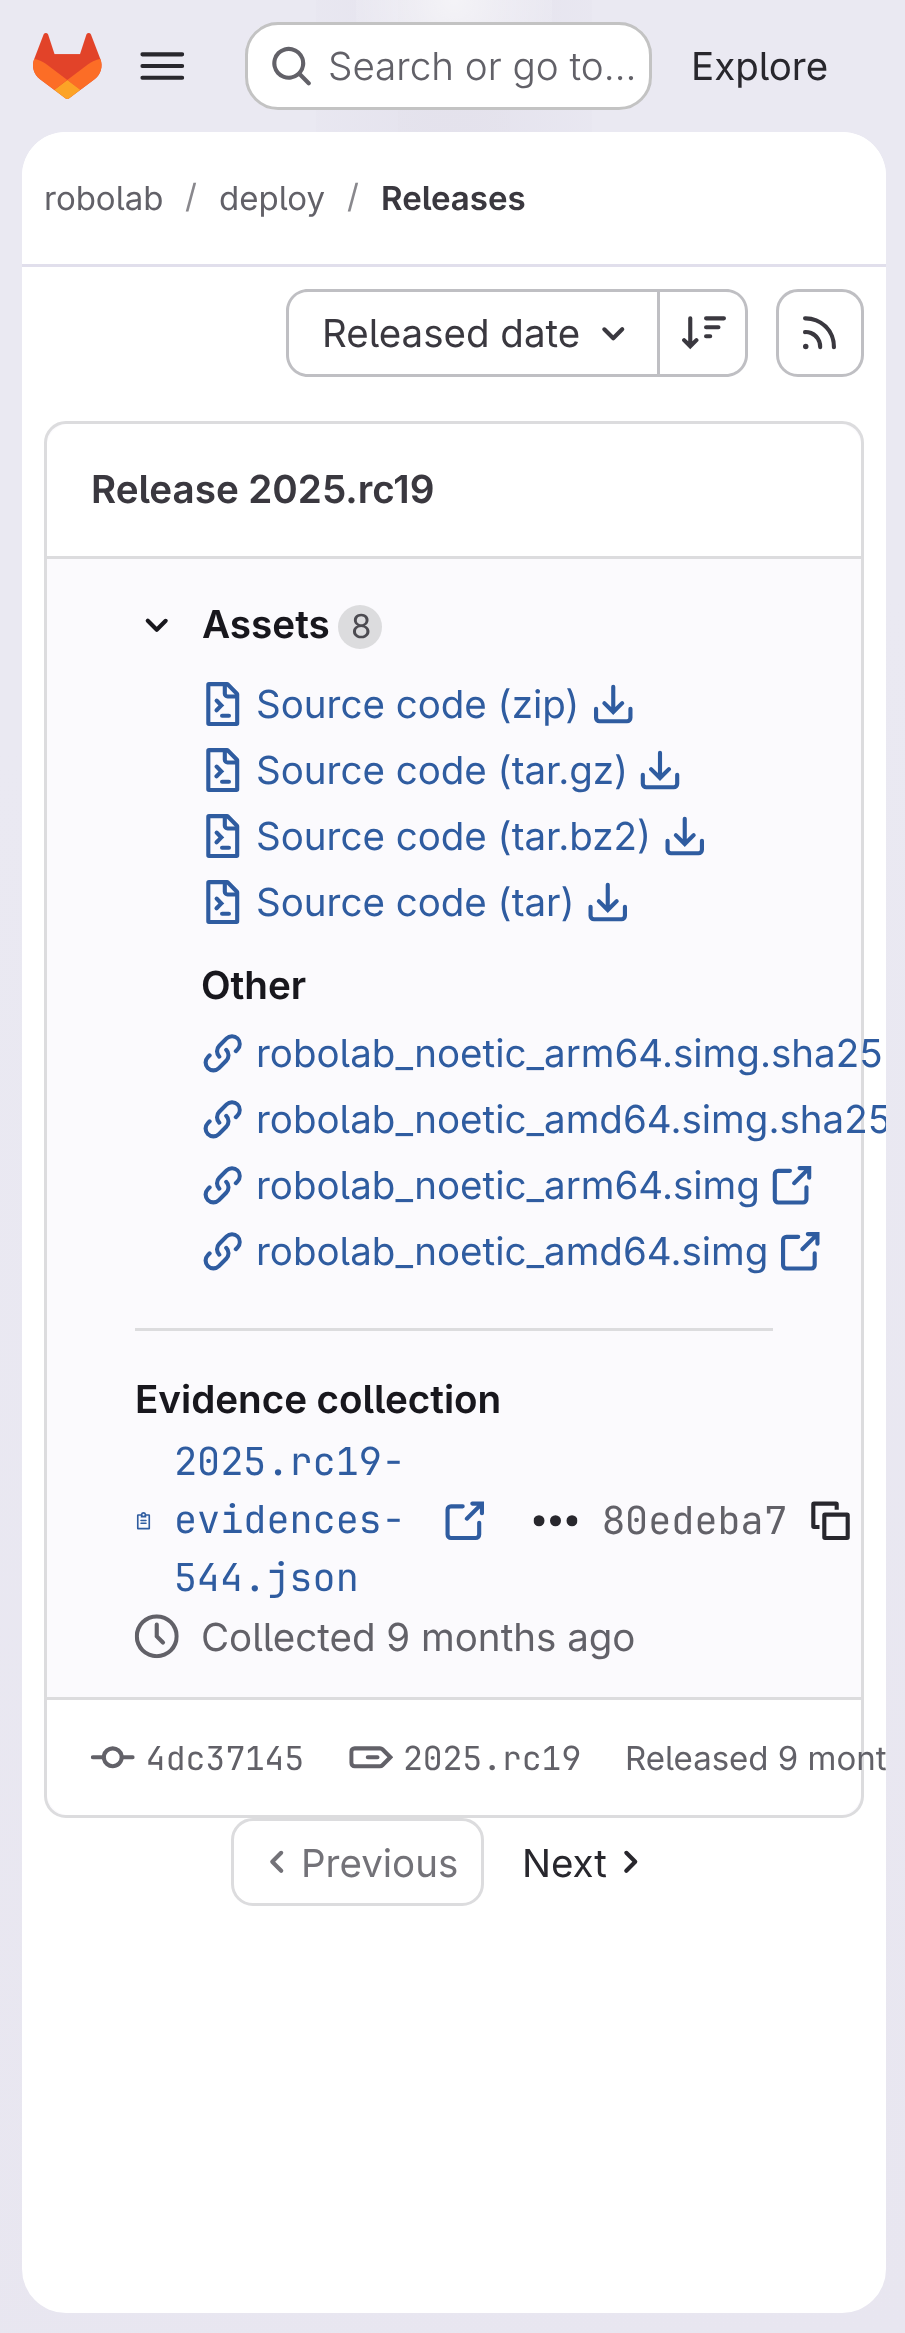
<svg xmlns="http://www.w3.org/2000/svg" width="905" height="2333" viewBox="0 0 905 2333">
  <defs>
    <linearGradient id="g1" gradientUnits="userSpaceOnUse" x1="667" y1="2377" x2="240" y2="-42"><stop offset="0" stop-color="rgb(232,230,240)"/><stop offset="0.7" stop-color="rgb(234,233,242)"/></linearGradient>
    <radialGradient id="g2" gradientUnits="userSpaceOnUse" cx="0" cy="0" r="1" gradientTransform="matrix(454 0 0 2335 454 0)"><stop offset="0" stop-color="rgb(228,226,237)"/><stop offset="0.42" stop-color="rgb(228,226,237)" stop-opacity="0"/></radialGradient>
    <radialGradient id="g3" gradientUnits="userSpaceOnUse" cx="0" cy="0" r="1" gradientTransform="matrix(454 0 0 2335 454 0)"><stop offset="0" stop-color="rgb(228,226,236)"/><stop offset="0.3" stop-color="rgb(228,226,236)" stop-opacity="0"/></radialGradient>
    <radialGradient id="g4" gradientUnits="userSpaceOnUse" cx="454" cy="0" r="2378"><stop offset="0" stop-color="rgb(255,255,255)" stop-opacity="0.6"/><stop offset="0.05" stop-color="rgb(255,255,255)" stop-opacity="0"/></radialGradient>
    <clipPath id="clip1"><rect x="22" y="267" width="864" height="2024"/></clipPath>
  </defs>
  <rect width="100%" height="100%" fill="rgb(255,255,255)"/>
  <rect x="0" y="0" width="905" height="2333" fill="url(#g1)"/>
  <rect x="316" y="0" width="276" height="132" fill="url(#g2)"/>
  <rect x="398" y="0" width="112" height="132" fill="url(#g3)"/>
  <rect x="356" y="0" width="196" height="101" fill="url(#g4)"/>
  <image x="33" y="33" width="69" height="66" href="pic1.png"/>
  <image x="140" y="52" width="45" height="28" href="pic2.png"/>
  <rect x="245" y="22" width="407" height="88" rx="33" fill="rgb(255,255,255)"/>
  <rect x="246.5" y="23.5" width="404" height="85" rx="31.5" fill="none" stroke="rgba(5,5,6,0.24)" stroke-width="3"/>
  <image x="272" y="46" width="39" height="40" href="pic3.png"/>
  <text x="328" y="80" font-family="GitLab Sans" font-size="38.5" font-weight="300" fill="rgb(98,97,104)">Search or go to…</text>
  <text x="691" y="80" font-family="GitLab Sans" font-size="38.5" fill="rgb(40,39,45)">Explore</text>
  <rect x="22" y="132" width="864" height="2181" rx="44" fill="rgb(255,255,255)"/>
  <path d="M66 132H842C866.5 132 886 151.5 886 176V267H22V176C22 151.5 41.5 132 66 132Z" fill="rgb(255,255,255)"/>
  <rect x="22" y="264" width="864" height="3" fill="rgb(225,223,236)"/>
  <text x="44" y="210" font-family="GitLab Sans" font-size="33" fill="rgb(98,97,104)">robolab</text>
  <text x="185" y="208" font-family="GitLab Sans" font-size="33" fill="rgb(137,136,141)">/</text>
  <text x="219" y="210" font-family="GitLab Sans" font-size="33" fill="rgb(98,97,104)">deploy</text>
  <text x="347" y="208" font-family="GitLab Sans" font-size="33" fill="rgb(137,136,141)">/</text>
  <text x="381" y="210" font-family="GitLab Sans" font-size="33" font-weight="600" fill="rgb(58,56,63)">Releases</text>
  <path d="M308 289H657V377H308C296 377 286 367 286 355V311C286 299 296 289 308 289ZM308 292H657V374H308C297 374 289 365 289 355V311C289 300 297 292 308 292Z" fill="rgb(191,191,195)" fill-rule="evenodd"/>
  <text x="322" y="347" font-family="GitLab Sans" font-size="38.5" fill="rgb(58,56,63)">Released date</text>
  <image x="602" y="327" width="23" height="14" href="pic4.png"/>
  <path d="M660 289H726C738 289 748 299 748 311V355C748 367 738 377 726 377H660ZM660 292H726C737 292 745 300 745 311V355C745 365 737 374 726 374H660Z" fill="rgb(191,191,195)" fill-rule="evenodd"/>
  <rect x="657" y="289" width="3" height="88" fill="rgb(191,191,195)"/>
  <image x="682" y="316" width="44" height="34" href="pic5.png"/>
  <rect x="777.5" y="290.5" width="85" height="85" rx="20.5" fill="none" stroke="rgb(191,191,195)" stroke-width="3"/>
  <image x="803" y="316" width="33" height="34" href="pic6.png"/>
  <rect x="45.5" y="422.5" width="817" height="1394" rx="20.5" fill="rgb(251,250,253)" stroke="rgb(220,220,222)" stroke-width="3"/>
  <path d="M69 424H839C851 424 861 434 861 446V558H47V446C47 434 57 424 69 424Z" fill="rgb(255,255,255)"/>
  <rect x="47" y="556" width="814" height="3" fill="rgb(220,220,222)"/>
  <text x="91" y="503" font-family="GitLab Sans" font-size="38.5" font-weight="600" fill="rgb(58,56,63)">Release 2025.rc19</text>
  <rect x="135" y="1328" width="638" height="3" fill="rgb(220,220,222)"/>
  <image x="145" y="618" width="23" height="14" href="pic7.png"/>
  <text x="202" y="638" font-family="GitLab Sans" font-size="38.5" font-weight="600" fill="rgb(24,23,29)">Assets</text>
  <circle cx="360" cy="627" r="22" fill="rgb(220,220,222)"/>
  <text x="351" y="638" font-family="GitLab Sans" font-size="33" fill="rgb(76,75,81)">8</text>
  <image x="206" y="682" width="34" height="44" href="pic8.png"/>
  <text x="256" y="718" font-family="GitLab Sans" font-size="38.5" fill="rgb(47,92,160)">Source code (zip)</text>
  <image x="594" y="684" width="39" height="40" href="pic9.png"/>
  <image x="206" y="748" width="34" height="44" href="pic10.png"/>
  <text x="256" y="784" font-family="GitLab Sans" font-size="38.5" fill="rgb(47,92,160)">Source code (tar.gz)</text>
  <image x="640" y="750" width="40" height="40" href="pic11.png"/>
  <image x="206" y="814" width="34" height="44" href="pic8.png"/>
  <text x="256" y="850" font-family="GitLab Sans" font-size="38.5" fill="rgb(47,92,160)">Source code (tar.bz2)</text>
  <image x="665" y="816" width="39" height="40" href="pic12.png"/>
  <image x="206" y="880" width="34" height="44" href="pic8.png"/>
  <text x="256" y="916" font-family="GitLab Sans" font-size="38.5" fill="rgb(47,92,160)">Source code (tar)</text>
  <image x="588" y="882" width="39" height="40" href="pic12.png"/>
  <text x="201" y="999" font-family="GitLab Sans" font-size="38.5" font-weight="600" fill="rgb(24,23,29)">Other</text>
  <image x="203" y="1034" width="39" height="39" href="pic13.png"/>
  <text x="256" y="1067" font-family="GitLab Sans" font-size="38.5" fill="rgb(47,92,160)">robolab_noetic_arm64.simg.sha25</text>
  <image x="203" y="1100" width="39" height="39" href="pic13.png"/>
  <g clip-path="url(#clip1)">
    <text x="256" y="1133" font-family="GitLab Sans" font-size="38.5" fill="rgb(47,92,160)">robolab_noetic_amd64.simg.sha25</text>
  </g>
  <image x="203" y="1166" width="39" height="39" href="pic13.png"/>
  <text x="256" y="1199" font-family="GitLab Sans" font-size="38.5" fill="rgb(47,92,160)">robolab_noetic_arm64.simg</text>
  <image x="772" y="1166" width="40" height="39" href="pic14.png"/>
  <image x="203" y="1232" width="39" height="39" href="pic13.png"/>
  <text x="256" y="1265" font-family="GitLab Sans" font-size="38.5" fill="rgb(47,92,160)">robolab_noetic_amd64.simg</text>
  <image x="781" y="1232" width="39" height="39" href="pic15.png"/>
  <text x="135" y="1413" font-family="GitLab Sans" font-size="38.5" font-weight="600" fill="rgb(24,23,29)">Evidence collection</text>
  <image x="136" y="1512" width="15" height="18" href="pic16.png"/>
  <g font-family="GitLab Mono" font-size="38.5" fill="rgb(47,92,160)">
    <text>
      <tspan x="174" y="1475">2025.rc19-</tspan>
      <tspan x="174" y="1533">evidences-</tspan>
      <tspan x="174" y="1591">544.json</tspan>
    </text>
  </g>
  <image x="445" y="1501" width="39" height="39" href="pic17.png"/>
  <image x="533" y="1515" width="45" height="12" href="pic18.png"/>
  <text x="602" y="1534" font-family="GitLab Mono" font-size="38.5" fill="rgb(98,97,104)">80edeba7</text>
  <image x="811" y="1501" width="39" height="39" href="pic19.png"/>
  <image x="134" y="1614" width="45" height="45" href="pic20.png"/>
  <text x="201" y="1651" font-family="GitLab Sans" font-size="38.5" fill="rgb(98,97,104)">Collected 9 months ago</text>
  <path d="M47 1697H861V1793C861 1805 851 1815 839 1815H69C57 1815 47 1805 47 1793Z" fill="rgb(255,255,255)"/>
  <rect x="47" y="1697" width="814" height="3" fill="rgb(220,220,222)"/>
  <image x="90" y="1746" width="45" height="23" href="pic21.png"/>
  <text x="146" y="1770" font-family="GitLab Mono" font-size="33" fill="rgb(98,97,104)">4dc37145</text>
  <image x="349" y="1746" width="44" height="23" href="pic22.png"/>
  <text x="403" y="1770" font-family="GitLab Mono" font-size="33" fill="rgb(98,97,104)">2025.rc19</text>
  <text x="625" y="1770" font-family="GitLab Sans" font-size="33" fill="rgb(98,97,104)">Released 9 mont</text>
  <rect x="232.5" y="1819.5" width="250" height="85" rx="20.5" fill="none" stroke="rgb(220,220,222)" stroke-width="3"/>
  <image x="270" y="1850" width="14" height="23" href="pic23.png"/>
  <text x="301" y="1877" font-family="GitLab Sans" font-size="38.5" fill="rgb(115,114,120)">Previous</text>
  <text x="522" y="1877" font-family="GitLab Sans" font-size="38.5" fill="rgb(40,39,45)">Next</text>
  <image x="624" y="1850" width="14" height="23" href="pic24.png"/>
</svg>
